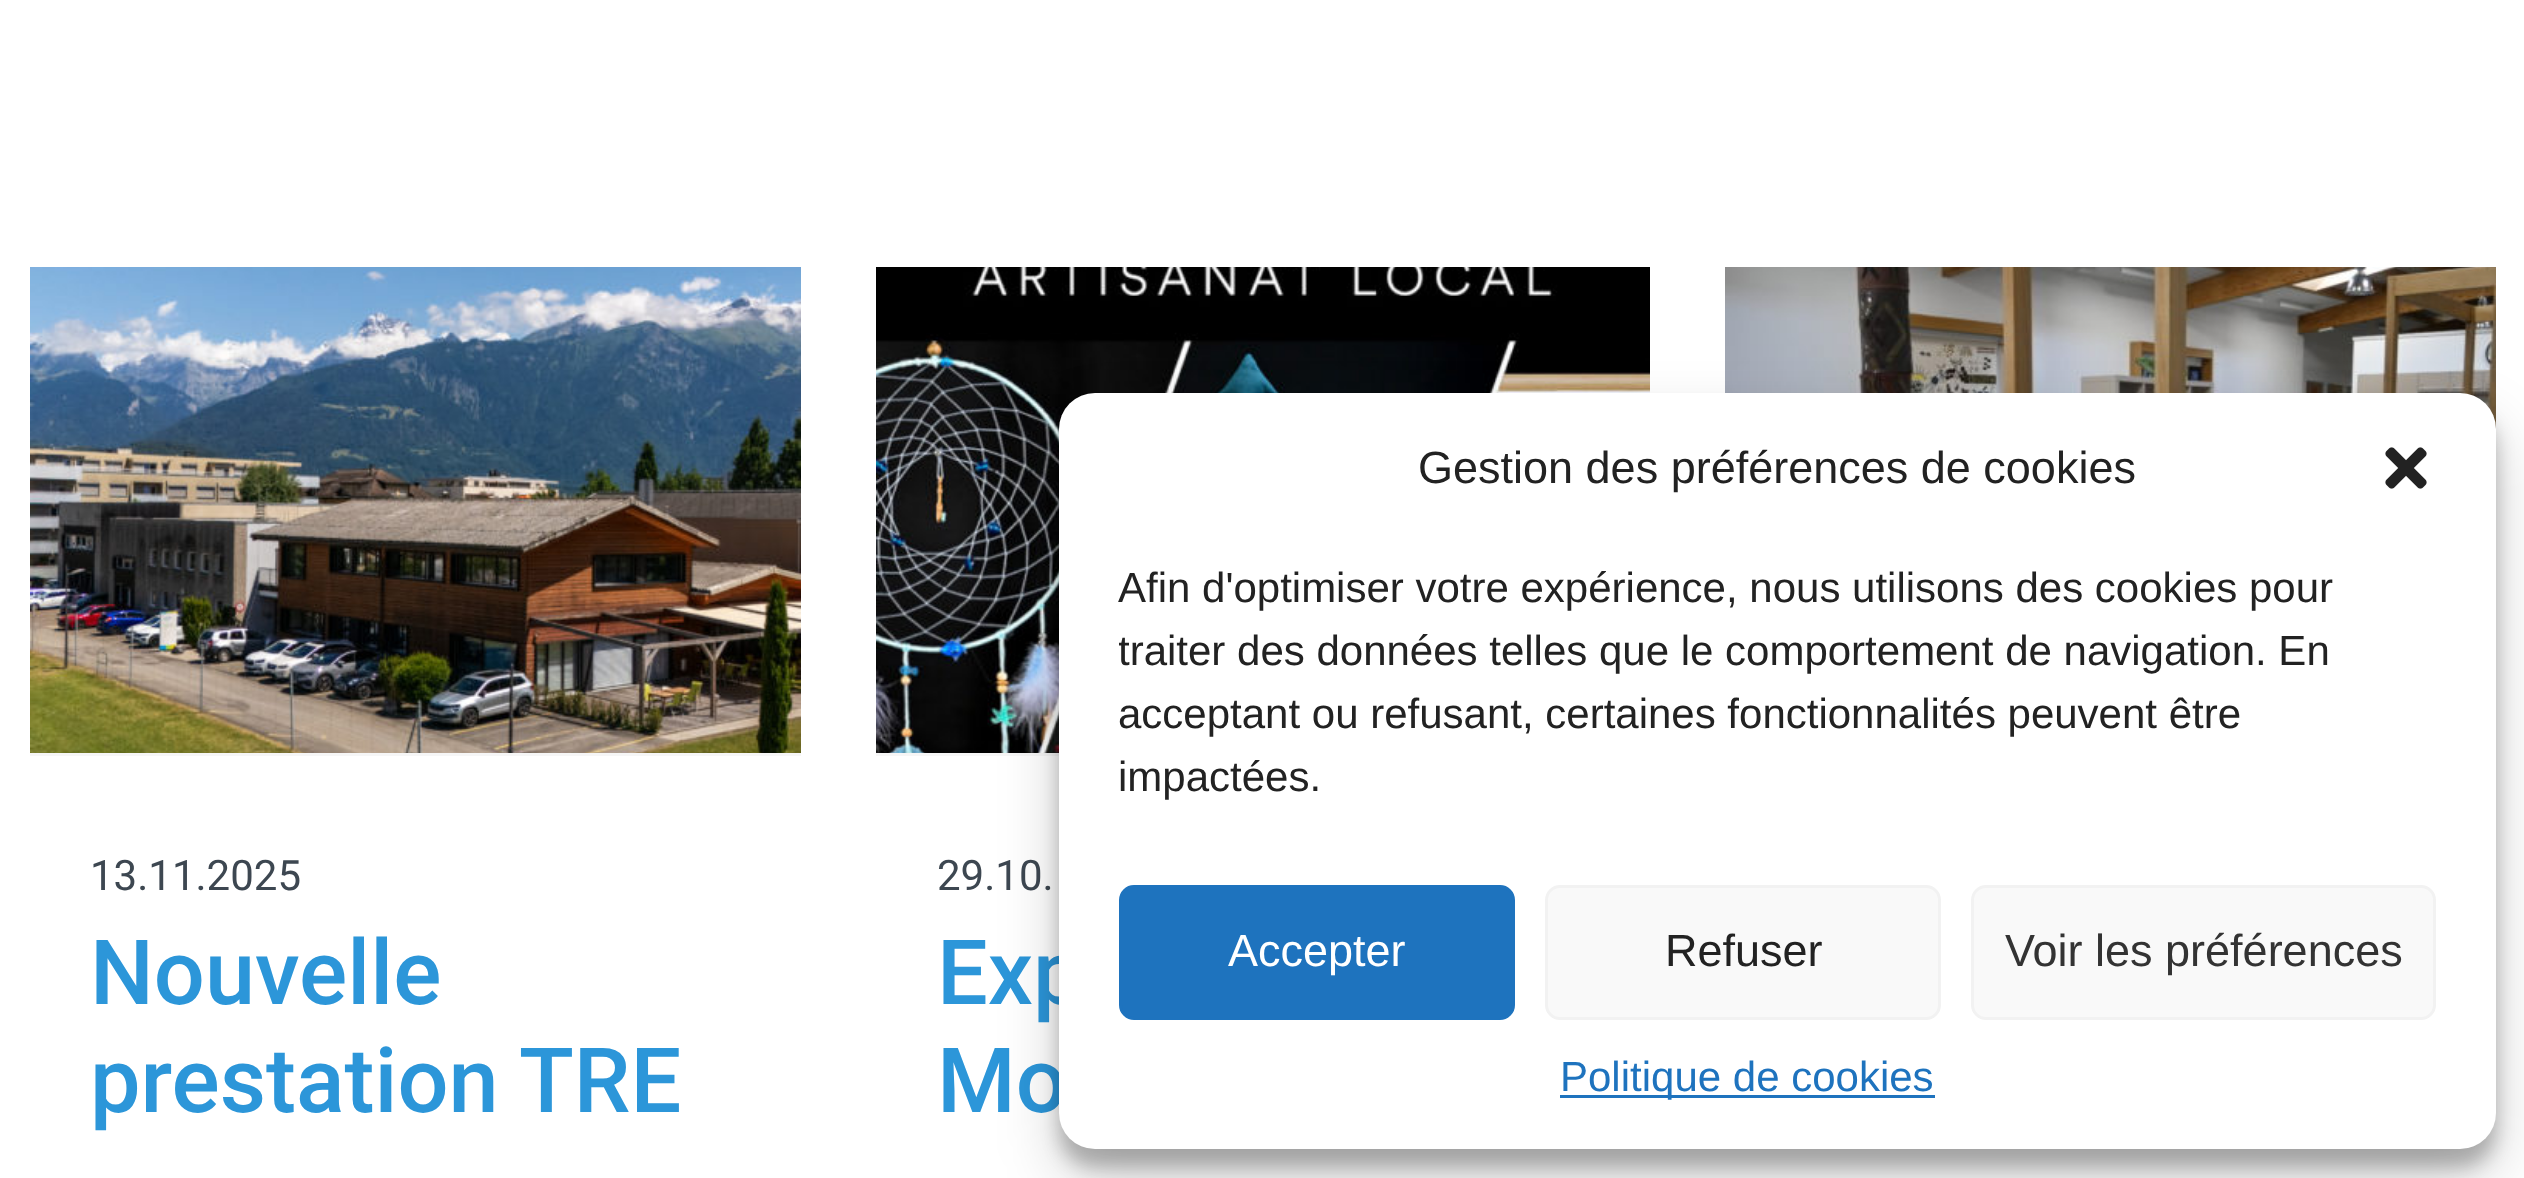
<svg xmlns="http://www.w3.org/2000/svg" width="2524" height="1178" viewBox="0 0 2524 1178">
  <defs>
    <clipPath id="clip1"><rect x="1119" y="558" width="1317" height="267"/></clipPath>
  </defs>
  <rect width="100%" height="100%" fill="rgb(255,255,255)"/>
  <image x="1725" y="267" width="771" height="162" href="pic1.png"/>
  <rect x="30" y="753" width="771" height="3" fill="rgb(246,246,246)"/>
  <image x="30" y="267" width="771" height="486" href="pic2.png"/>
  <text x="90" y="890" font-family="Roboto" font-size="42" fill="rgb(61,71,81)">13.11.2025</text>
  <g font-family="Roboto" font-size="90" font-weight="500" fill="rgb(44,150,217)">
    <text>
      <tspan x="90" y="1004">Nouvelle</tspan>
      <tspan x="90" y="1112">prestation TRE</tspan>
    </text>
  </g>
  <rect x="876" y="753" width="183" height="3" fill="rgb(246,246,246)"/>
  <image x="876" y="267" width="774" height="486" href="pic3.png"/>
  <text x="937" y="890" font-family="Roboto" font-size="42" fill="rgb(61,71,81)">29.10.</text>
  <g font-family="Roboto" font-size="90" font-weight="500" fill="rgb(44,150,217)">
    <text>
      <tspan x="937" y="1004">Exp</tspan>
      <tspan x="937" y="1112">Mo</tspan>
    </text>
  </g>
  <rect x="1059" y="411" width="1437" height="756" rx="36" fill="rgba(0,0,0,0.23)" filter="blur(9px)"/>
  <rect x="1059" y="423" width="1437" height="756" rx="36" fill="rgba(0,0,0,0.19)" filter="blur(30px)"/>
  <rect x="1059" y="393" width="1437" height="756" rx="36" fill="rgb(255,255,255)"/>
  <text x="1418" y="483" font-family="Liberation Sans" font-size="45" fill="rgb(34,34,34)">Gestion des préférences de cookies</text>
  <image x="2385" y="447" width="42" height="42" href="pic4.png"/>
  <text x="1118" y="602" font-family="Liberation Sans" font-size="42" fill="rgb(34,34,34)">Afin d'optimiser votre expérience, nous utilisons des cookies pour</text>
  <g clip-path="url(#clip1)">
    <text x="1118" y="665" font-family="Liberation Sans" font-size="42" fill="rgb(34,34,34)">traiter des données telles que le comportement de navigation. En</text>
  </g>
  <g font-family="Liberation Sans" font-size="42" fill="rgb(34,34,34)">
    <text>
      <tspan x="1118" y="728">acceptant ou refusant, certaines fonctionnalités peuvent être</tspan>
      <tspan x="1118" y="791">impactées.</tspan>
    </text>
  </g>
  <rect x="1120.5" y="886.5" width="393" height="132" rx="13.5" fill="rgb(30,115,190)" stroke="rgb(30,115,190)" stroke-width="3"/>
  <text x="1228" y="966" font-family="Liberation Sans" font-size="45" fill="rgb(255,255,255)">Accepter</text>
  <rect x="1546.5" y="886.5" width="393" height="132" rx="13.5" fill="rgb(249,249,249)" stroke="rgb(242,242,242)" stroke-width="3"/>
  <text x="1665" y="966" font-family="Liberation Sans" font-size="45" fill="rgb(34,34,34)">Refuser</text>
  <rect x="1972.5" y="886.5" width="462" height="132" rx="13.5" fill="rgb(249,249,249)" stroke="rgb(242,242,242)" stroke-width="3"/>
  <text x="2005" y="966" font-family="Liberation Sans" font-size="45" fill="rgb(51,51,51)">Voir les préférences</text>
  <rect x="1560" y="1095" width="375" height="3" fill="rgb(30,115,190)"/>
  <text x="1560" y="1091" font-family="Liberation Sans" font-size="42" fill="rgb(30,115,190)">Politique de cookies</text>
</svg>
